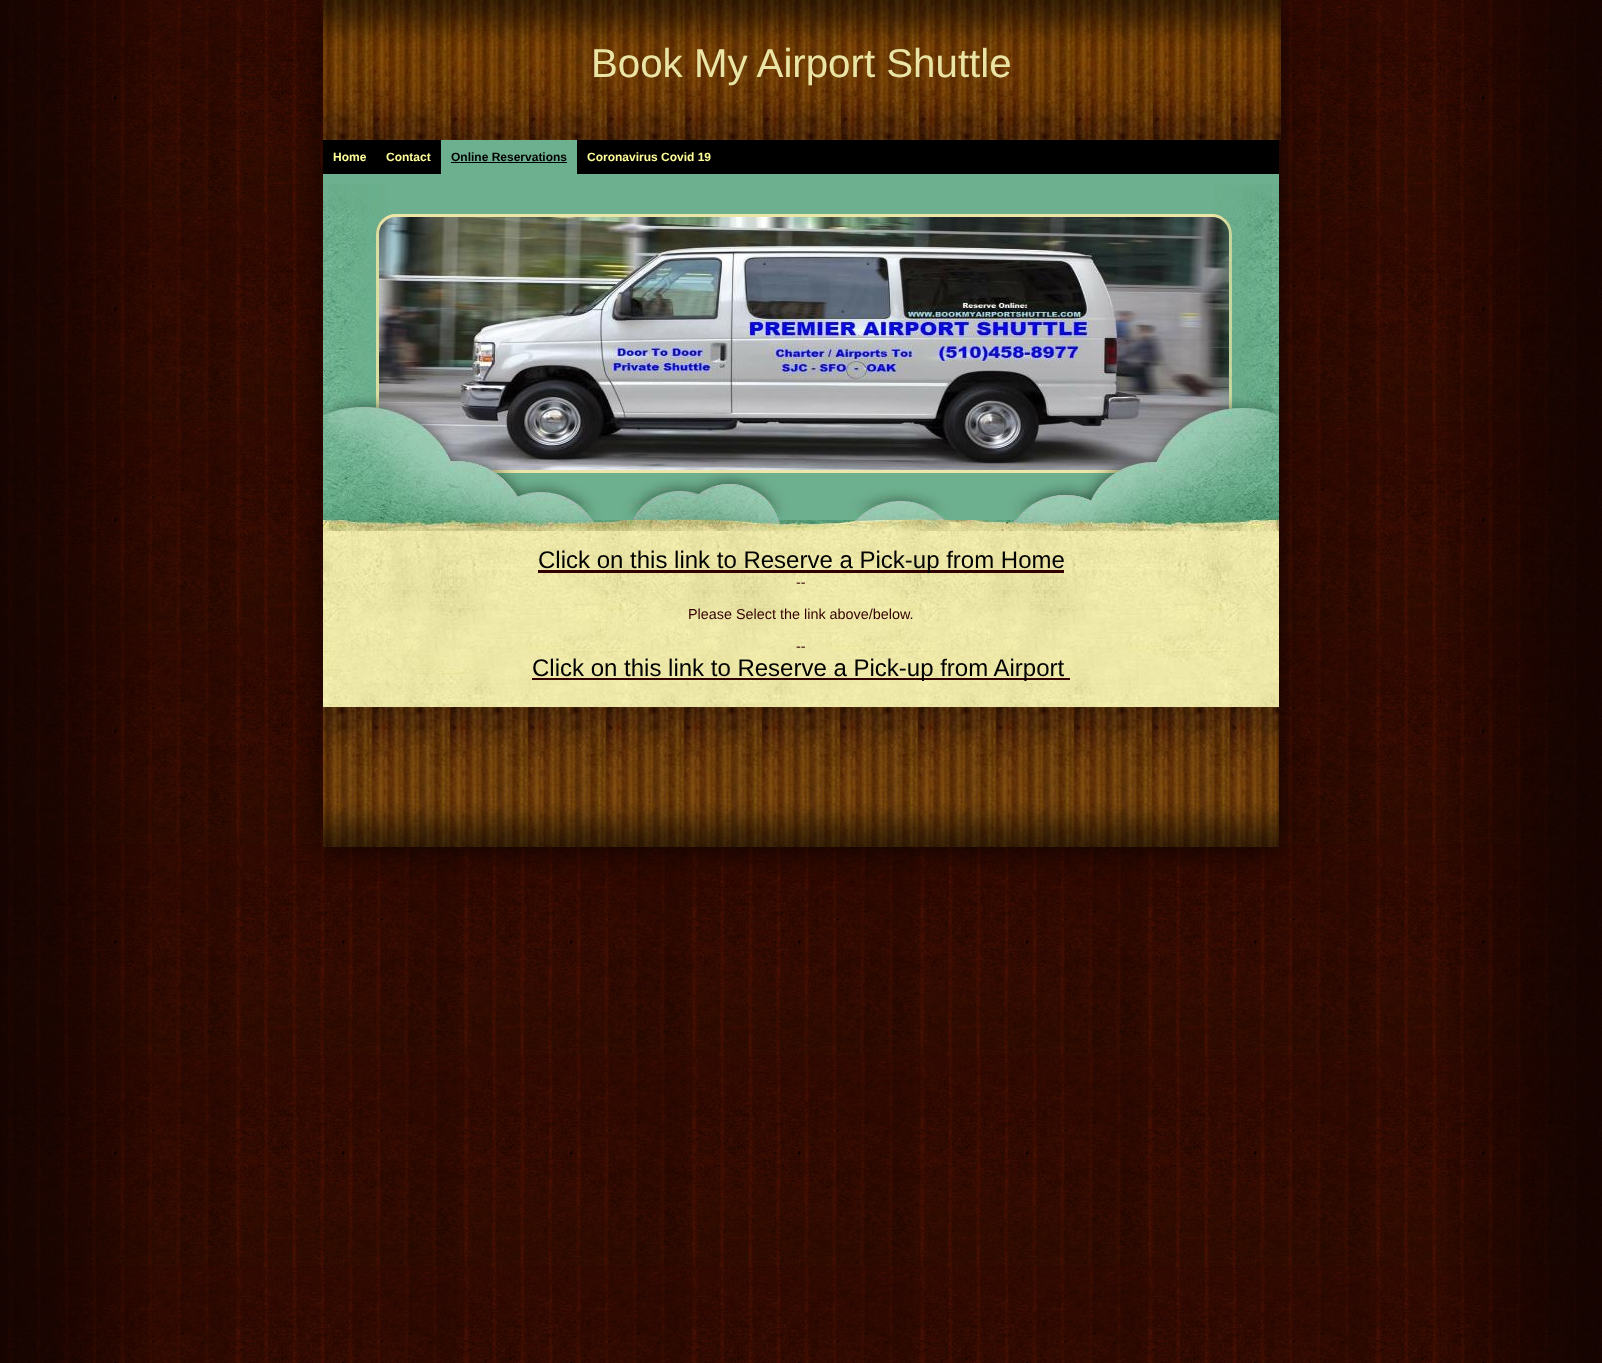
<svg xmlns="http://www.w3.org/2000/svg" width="1602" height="1363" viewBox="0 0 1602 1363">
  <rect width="100%" height="100%" fill="rgb(255,255,255)"/>
  <image x="0" y="0" width="1602" height="1363" href="pic1.png"/>
  <image x="0" y="0" width="153" height="1363" href="pic2.png"/>
  <rect x="323" y="5" width="956" height="847" fill="rgba(0,0,0,0.6)" filter="blur(15px)"/>
  <rect x="323" y="140" width="956" height="34" fill="rgb(0,0,0)"/>
  <image x="323" y="0" width="958" height="140" href="pic3.png"/>
  <text x="591" y="77" font-family="Liberation Sans" font-size="40.25" fill="rgb(234,229,165)">Book My Airport Shuttle</text>
  <g font-family="Liberation Sans" font-size="12" font-weight="bold" fill="rgb(255,255,153)">
    <text x="333" y="161">Home</text>
    <text x="386" y="161">Contact</text>
  </g>
  <rect x="441" y="140" width="136" height="34" fill="rgb(109,176,143)"/>
  <text x="451" y="161" font-family="Liberation Sans" font-size="12" font-weight="bold" fill="rgb(0,0,0)">Online Reservations</text>
  <rect x="451" y="162" width="116" height="1" fill="rgb(0,0,0)"/>
  <text x="587" y="161" font-family="Liberation Sans" font-size="12" font-weight="bold" fill="rgb(255,255,153)">Coronavirus Covid 19</text>
  <rect x="323" y="174" width="956" height="346" fill="rgb(109,176,143)"/>
  <image x="376" y="214" width="856" height="256" href="pic5.png"/>
  <rect x="377.5" y="215.5" width="853" height="256" rx="18.5" fill="none" stroke="rgb(236,231,167)" stroke-width="3"/>
  <image x="323" y="184" width="956" height="336" href="pic4.png"/>
  <image x="323" y="520" width="956" height="11" href="pic6.png"/>
  <image x="323" y="531" width="956" height="176" href="pic7.png"/>
  <rect x="538" y="570" width="526" height="3" fill="rgb(51,0,0)"/>
  <text x="538" y="568" font-family="Liberation Sans" font-size="24" fill="rgb(0,0,0)">Click on this link to Reserve a Pick-up from Home</text>
  <g font-family="Liberation Sans" font-size="14.4" fill="rgb(51,0,0)">
    <text x="796" y="587">--</text>
    <text x="688" y="619">Please Select the link above/below.</text>
    <text x="796" y="651">--</text>
  </g>
  <rect x="532" y="678" width="538" height="2" fill="rgb(51,0,0)"/>
  <text x="532" y="676" font-family="Liberation Sans" font-size="24" fill="rgb(0,0,0)">Click on this link to Reserve a Pick-up from Airport</text>
  <image x="323" y="707" width="956" height="140" href="pic8.png"/>
  <image x="1447" y="0" width="155" height="1363" href="pic9.png"/>
</svg>
